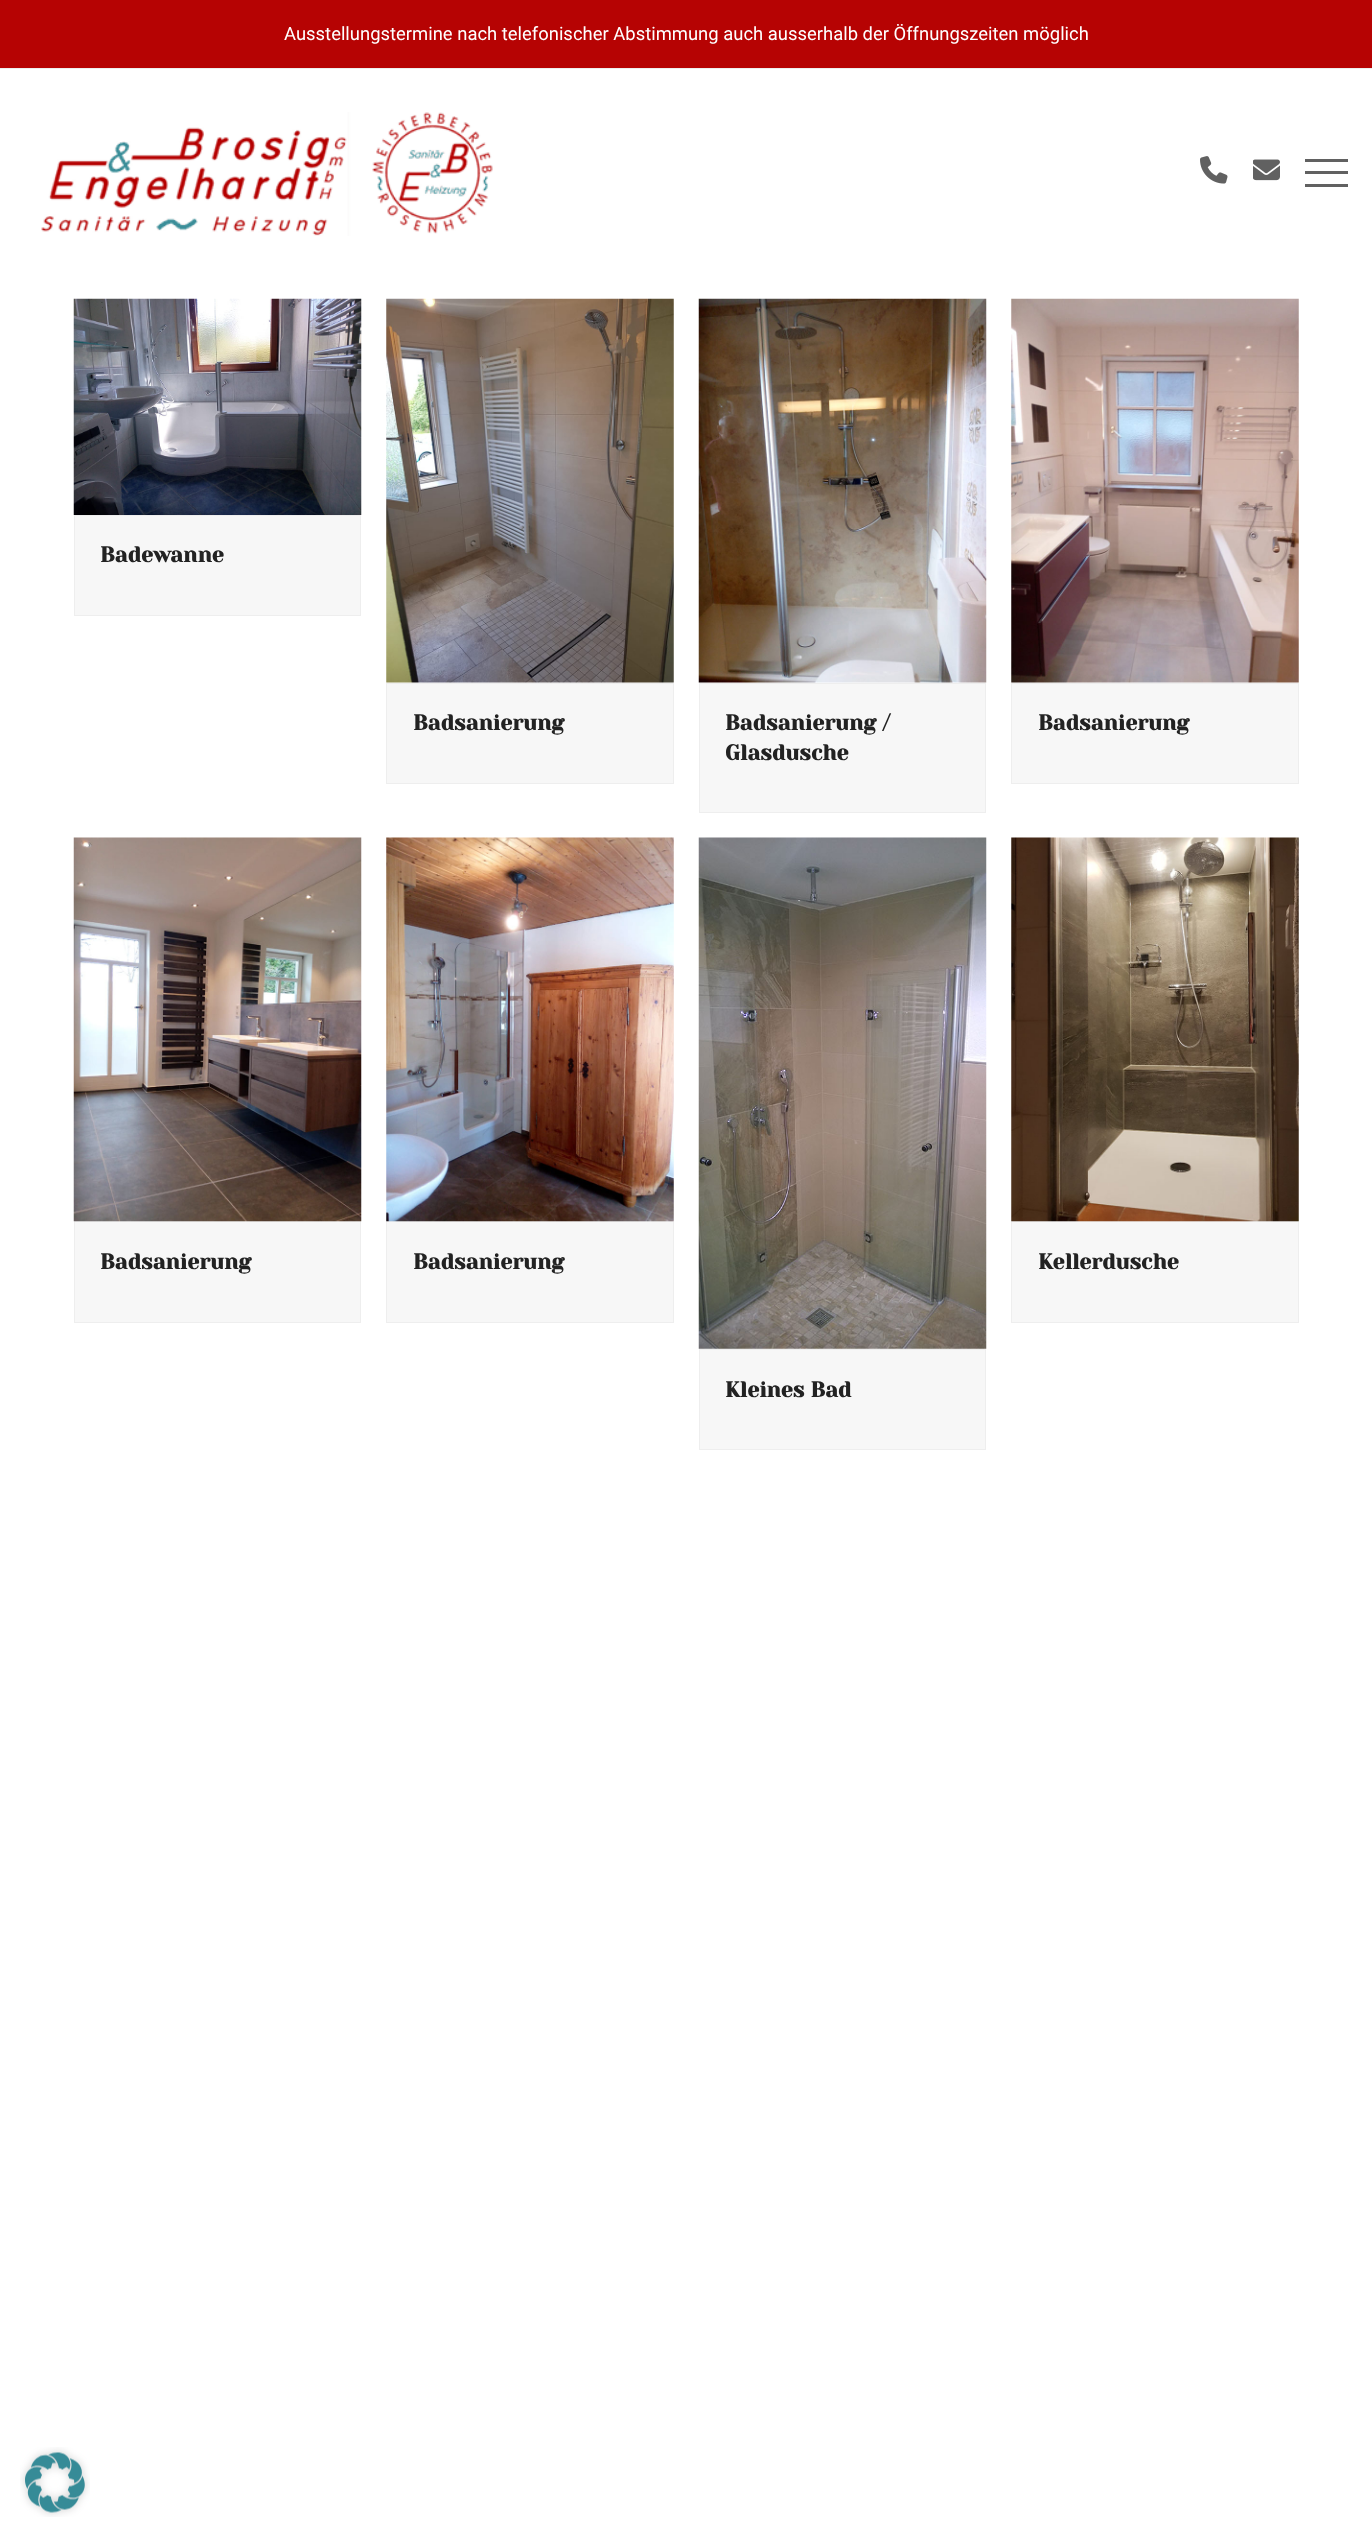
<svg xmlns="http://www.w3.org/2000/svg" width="1372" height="2537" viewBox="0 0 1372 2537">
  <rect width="100%" height="100%" fill="rgb(255,255,255)"/>
  <rect x="0" y="0" width="1372" height="68" fill="rgb(182,3,3)"/>
  <rect x="0" y="68" width="1372" height="1" fill="rgb(238,238,238)"/>
  <text x="284" y="40" font-family="Roboto" font-size="18.45" fill="rgb(255,255,255)">Ausstellungstermine nach telefonischer Abstimmung auch ausserhalb der Öffnungszeiten möglich</text>
  <image x="41" y="112" width="452" height="124" href="pic1.png"/>
  <image x="1200" y="156" width="28" height="28" href="pic2.png"/>
  <image x="1253" y="159" width="27" height="22" href="pic3.png"/>
  <rect x="1305" y="171" width="43" height="3" fill="rgb(97,97,97)"/>
  <rect x="1305" y="159" width="43" height="3" fill="rgb(97,97,97)"/>
  <rect x="1305" y="184" width="43" height="3" fill="rgb(97,97,97)"/>
  <image x="73" y="298" width="289" height="217" href="pic4.png"/>
  <rect x="74.5" y="515.5" width="286" height="100" fill="rgb(247,247,247)" stroke="rgb(238,238,238)"/>
  <text x="100" y="562" font-family="Yeseva One" font-size="21.5" font-weight="bold" fill="rgb(34,34,34)">Badewanne</text>
  <image x="386" y="298" width="288" height="385" href="pic5.png"/>
  <rect x="386.5" y="683.5" width="287" height="100" fill="rgb(247,247,247)" stroke="rgb(238,238,238)"/>
  <text x="413" y="730" font-family="Yeseva One" font-size="21.5" font-weight="bold" fill="rgb(34,34,34)">Badsanierung</text>
  <image x="698" y="298" width="289" height="385" href="pic6.png"/>
  <rect x="699.5" y="683.5" width="286" height="129" fill="rgb(247,247,247)" stroke="rgb(238,238,238)"/>
  <g font-family="Yeseva One" font-size="21.5" font-weight="bold" fill="rgb(34,34,34)">
    <text>
      <tspan x="725" y="730">Badsanierung /</tspan>
      <tspan x="725" y="760">Glasdusche</tspan>
    </text>
  </g>
  <image x="1011" y="298" width="288" height="385" href="pic7.png"/>
  <rect x="1011.5" y="683.5" width="287" height="100" fill="rgb(247,247,247)" stroke="rgb(238,238,238)"/>
  <text x="1038" y="730" font-family="Yeseva One" font-size="21.5" font-weight="bold" fill="rgb(34,34,34)">Badsanierung</text>
  <rect x="74.5" y="1221.5" width="286" height="101" fill="rgb(247,247,247)" stroke="rgb(238,238,238)"/>
  <image x="73" y="837" width="289" height="385" href="pic8.png"/>
  <text x="100" y="1269" font-family="Yeseva One" font-size="21.5" font-weight="bold" fill="rgb(34,34,34)">Badsanierung</text>
  <rect x="386.5" y="1221.5" width="287" height="101" fill="rgb(247,247,247)" stroke="rgb(238,238,238)"/>
  <image x="386" y="837" width="288" height="385" href="pic9.png"/>
  <text x="413" y="1269" font-family="Yeseva One" font-size="21.5" font-weight="bold" fill="rgb(34,34,34)">Badsanierung</text>
  <rect x="1011.5" y="1221.5" width="287" height="101" fill="rgb(247,247,247)" stroke="rgb(238,238,238)"/>
  <image x="1011" y="837" width="288" height="385" href="pic10.png"/>
  <text x="1038" y="1269" font-family="Yeseva One" font-size="21.5" font-weight="bold" fill="rgb(34,34,34)">Kellerdusche</text>
  <image x="698" y="837" width="289" height="512" href="pic11.png"/>
  <rect x="699.5" y="1349.5" width="286" height="100" fill="rgb(247,247,247)" stroke="rgb(238,238,238)"/>
  <text x="725" y="1397" font-family="Yeseva One" font-size="21.5" font-weight="bold" fill="rgb(34,34,34)">Kleines Bad</text>
  <image x="20" y="2447" width="70" height="70" href="pic12.png"/>
</svg>
